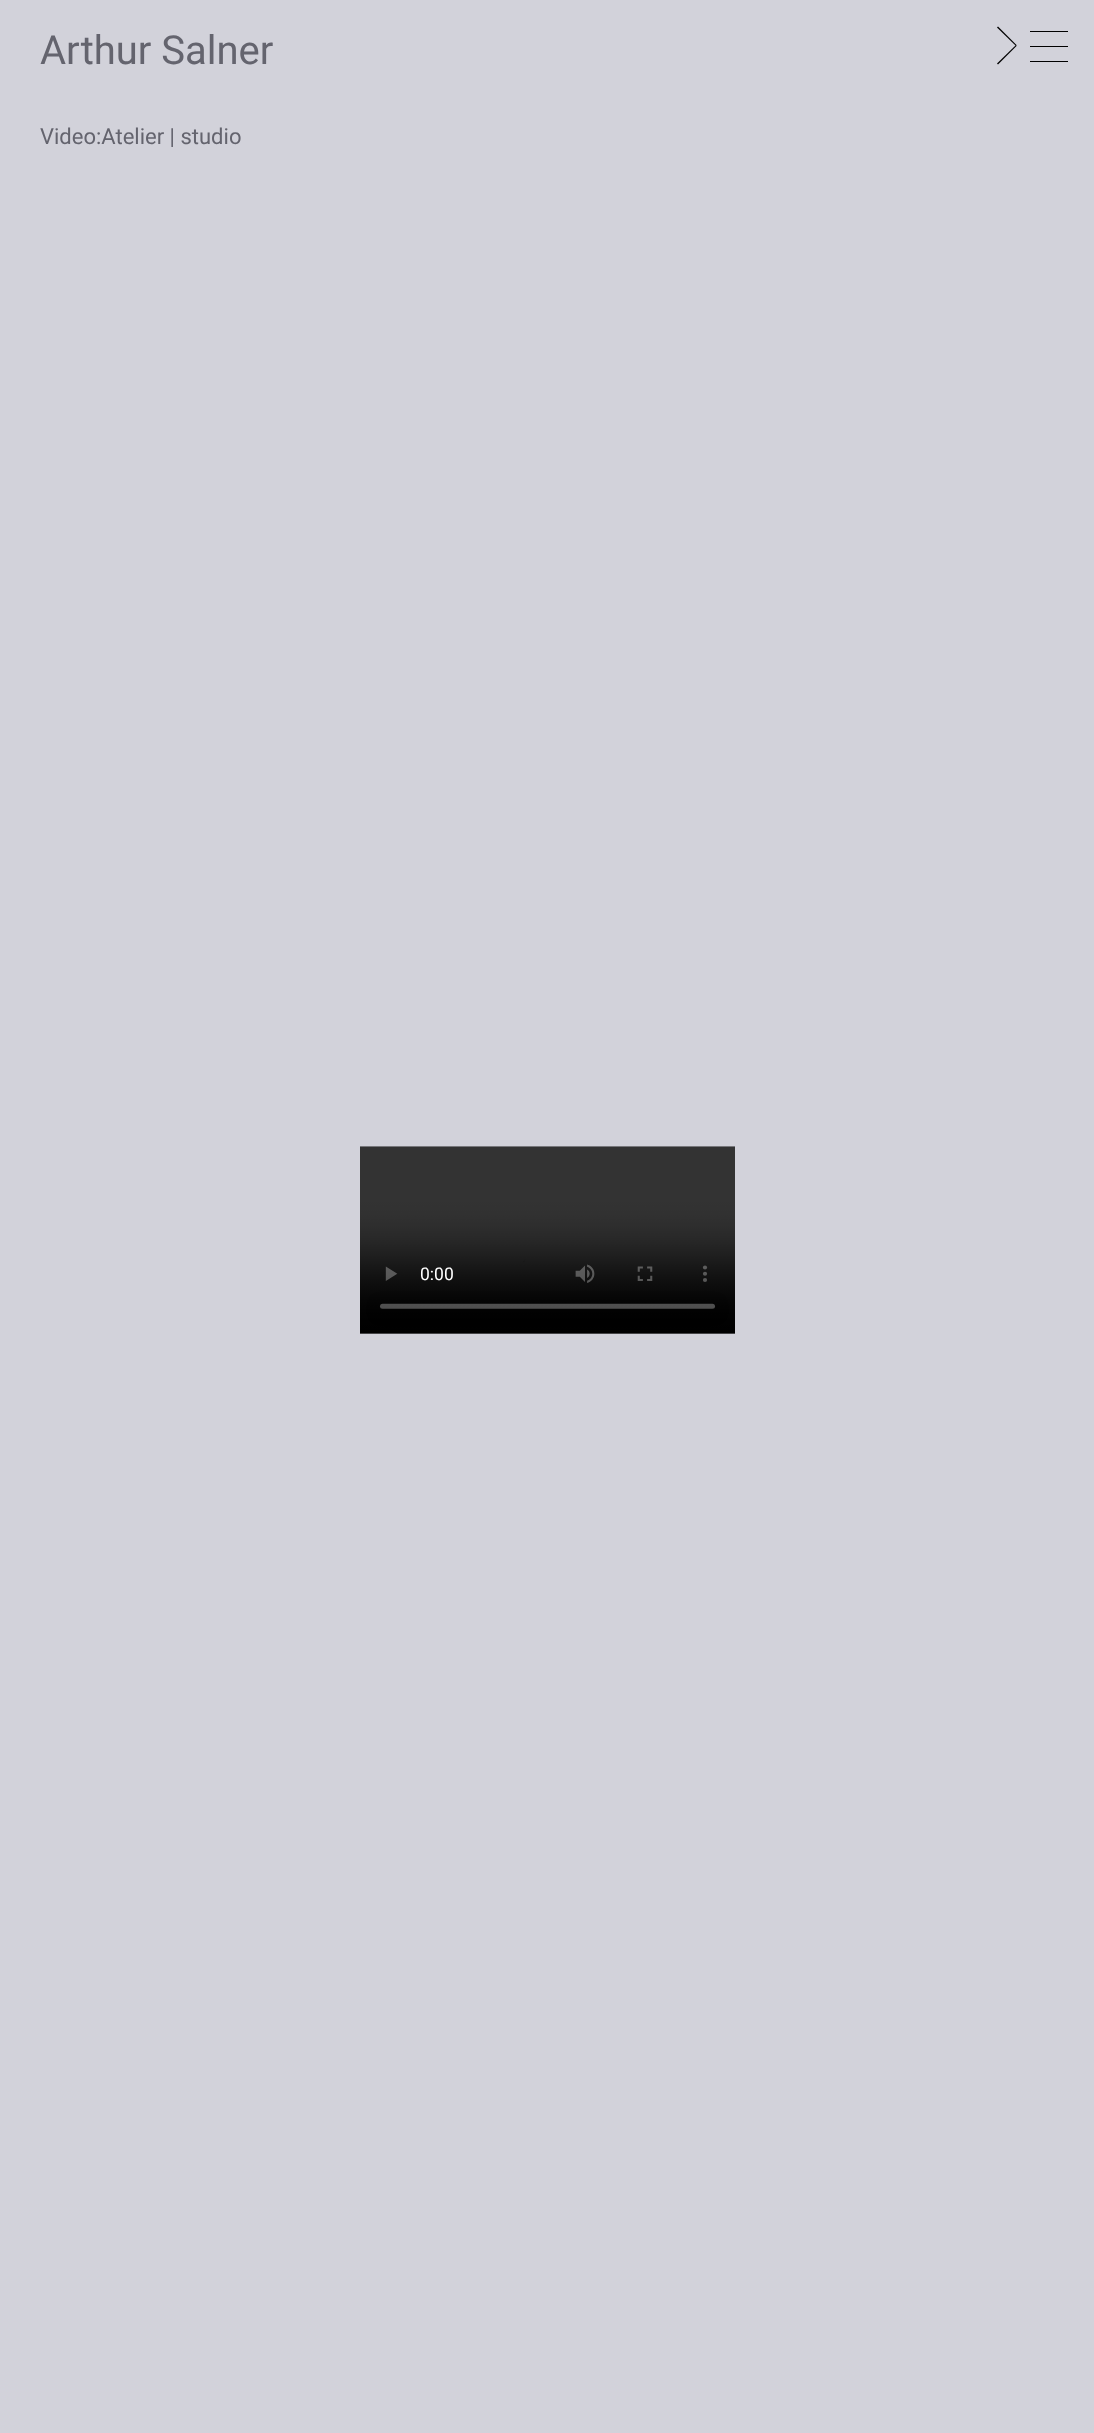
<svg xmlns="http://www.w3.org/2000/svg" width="1094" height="2433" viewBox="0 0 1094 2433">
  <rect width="100%" height="100%" fill="rgb(210,210,218)"/>
  <text x="40" y="64" font-family="Roboto" font-size="40" fill="rgb(100,100,110)">Arthur Salner</text>
  <path d="M998 26.5L1016.5 45L1016 46L997 27.5Z" fill="rgb(0,0,0)"/>
  <path d="M997 63.5L1016 45L1016.5 46L998 64.5Z" fill="rgb(0,0,0)"/>
  <rect x="1030" y="31" width="38" height="1" fill="rgb(0,0,0)"/>
  <rect x="1030" y="46" width="38" height="1" fill="rgb(0,0,0)"/>
  <rect x="1030" y="61" width="38" height="1" fill="rgb(0,0,0)"/>
  <text x="40" y="144" font-family="Roboto" font-size="22" fill="rgb(100,100,110)">Video:Atelier | studio</text>
  <image x="360" y="1146" width="375" height="188" href="pic1.png"/>
</svg>
